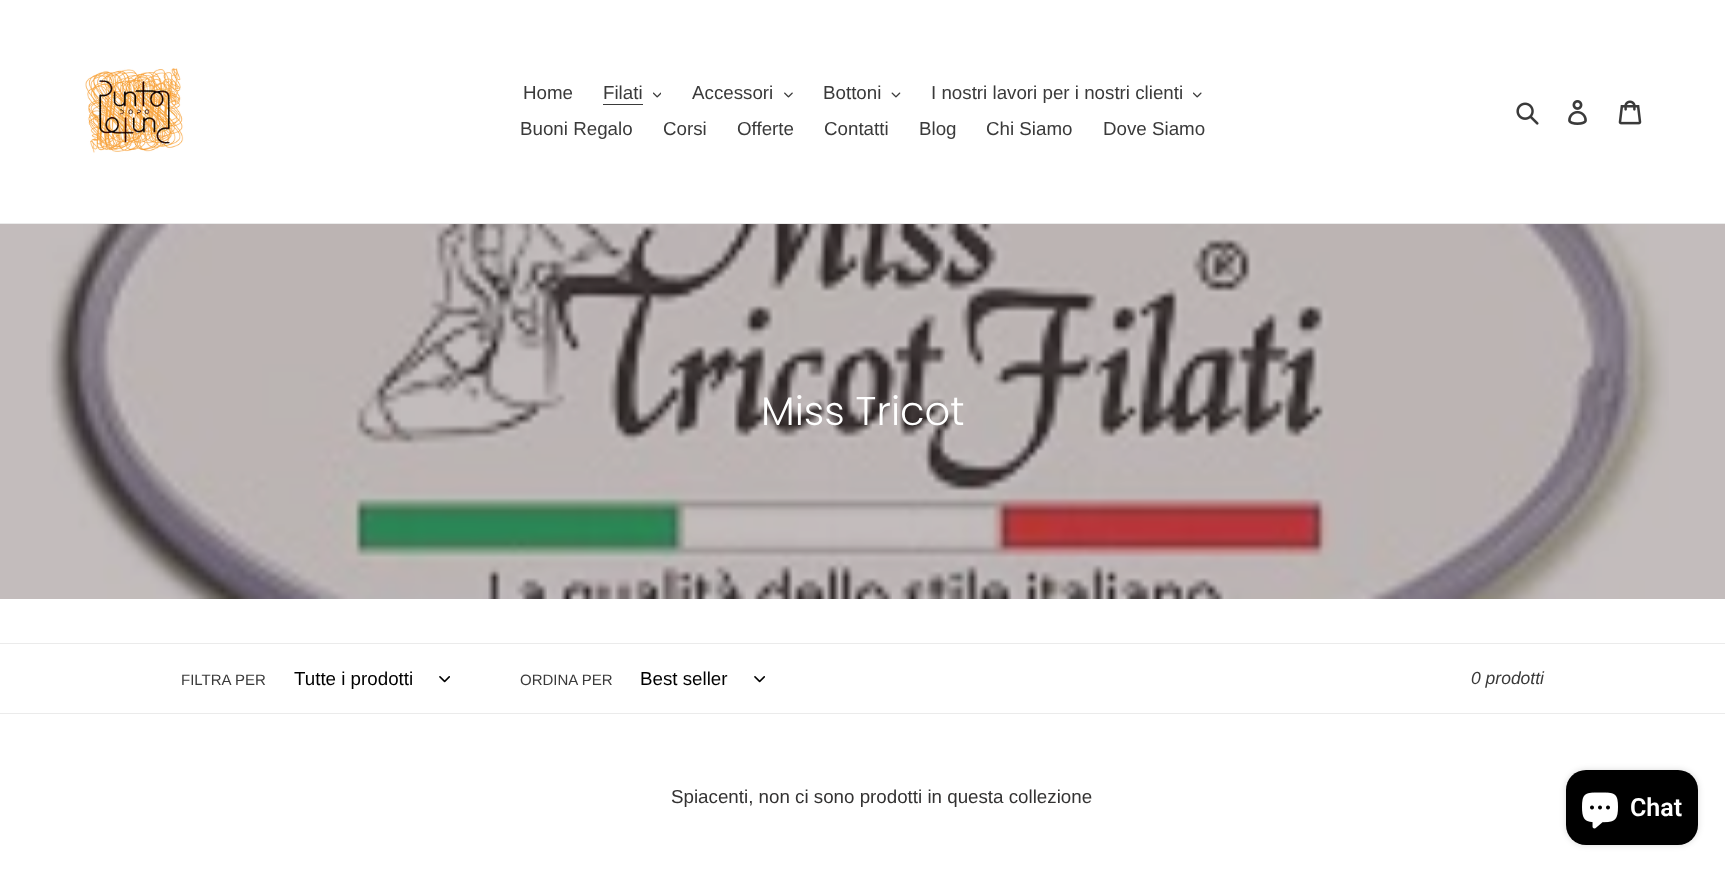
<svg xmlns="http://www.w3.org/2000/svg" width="1725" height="871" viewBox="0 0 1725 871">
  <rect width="100%" height="100%" fill="rgb(255,255,255)"/>
  <rect x="0" y="224" width="1725" height="375" fill="rgb(195,188,188)"/>
  <rect x="0" y="223" width="1725" height="1" fill="rgb(235,235,235)"/>
  <image x="85" y="68" width="99" height="85" href="pic1.png"/>
  <g font-family="Liberation Sans" font-size="18.75" fill="rgb(58,58,58)">
    <text x="523" y="99">Home</text>
    <text x="603" y="99">Filati</text>
  </g>
  <rect x="603" y="104" width="40" height="1" fill="rgb(58,58,58)"/>
  <image x="653" y="92" width="8" height="6" href="pic2.png"/>
  <text x="692" y="99" font-family="Liberation Sans" font-size="18.75" fill="rgb(58,58,58)">Accessori</text>
  <image x="784" y="92" width="9" height="6" href="pic3.png"/>
  <text x="823" y="99" font-family="Liberation Sans" font-size="18.75" fill="rgb(58,58,58)">Bottoni</text>
  <image x="891" y="92" width="10" height="6" href="pic4.png"/>
  <text x="931" y="99" font-family="Liberation Sans" font-size="18.75" fill="rgb(58,58,58)">I nostri lavori per i nostri clienti</text>
  <image x="1193" y="92" width="9" height="6" href="pic5.png"/>
  <g font-family="Liberation Sans" font-size="18.75" fill="rgb(58,58,58)">
    <text x="520" y="135">Buoni Regalo</text>
    <text x="663" y="135">Corsi</text>
    <text x="737" y="135">Offerte</text>
    <text x="824" y="135">Contatti</text>
    <text x="919" y="135">Blog</text>
    <text x="986" y="135">Chi Siamo</text>
    <text x="1103" y="135">Dove Siamo</text>
  </g>
  <image x="1516" y="102" width="23" height="23" href="pic6.png"/>
  <image x="1568" y="100" width="19" height="25" href="pic7.png"/>
  <image x="1618" y="100" width="24" height="25" href="pic8.png"/>
  <image x="46" y="224" width="1623" height="375" href="pic9.png"/>
  <text x="761" y="425" font-family="Poppins" font-size="40" font-weight="300" fill="rgb(255,255,255)">Miss Tricot</text>
  <rect x="0" y="643" width="1725" height="1" fill="rgb(235,235,235)"/>
  <rect x="0" y="713" width="1725" height="1" fill="rgb(235,235,235)"/>
  <text x="181" y="685" font-family="Liberation Sans" font-size="15" fill="rgb(58,58,58)">FILTRA PER</text>
  <text x="294" y="685" font-family="Liberation Sans" font-size="18.75" fill="rgb(0,0,0)">Tutte i prodotti</text>
  <image x="439" y="676" width="11" height="7" href="pic10.png"/>
  <text x="520" y="685" font-family="Liberation Sans" font-size="15" fill="rgb(58,58,58)">ORDINA PER</text>
  <text x="640" y="685" font-family="Liberation Sans" font-size="18.75" fill="rgb(0,0,0)">Best seller</text>
  <image x="754" y="676" width="11" height="7" href="pic10.png"/>
  <text x="1471" y="684" font-family="Liberation Sans" font-size="17.5" font-style="italic" fill="rgb(58,58,58)">0 prodotti</text>
  <text x="671" y="803" font-family="Liberation Sans" font-size="18.75" fill="rgb(51,50,50)">Spiacenti, non ci sono prodotti in questa collezione</text>
  <rect x="1566" y="770" width="132" height="75" rx="20" fill="rgba(0,0,0,0.15)" filter="blur(3px)"/>
  <rect x="1566" y="770" width="132" height="75" rx="20" fill="rgb(0,0,0)"/>
  <image x="1582" y="792" width="36" height="37" href="pic11.png"/>
  <text x="1630" y="816" font-family="Roboto" font-size="25" font-weight="600" fill="rgb(255,255,255)">Chat</text>
</svg>
